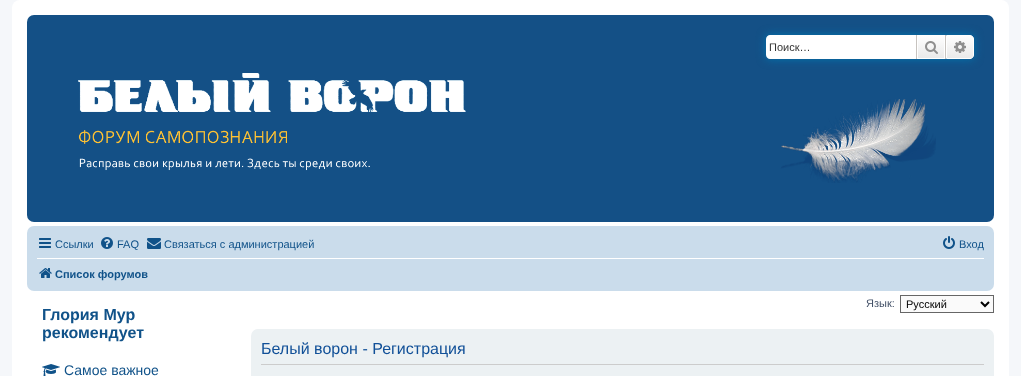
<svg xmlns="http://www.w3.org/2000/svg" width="1021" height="376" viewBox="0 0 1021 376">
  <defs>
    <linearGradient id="g1" gradientUnits="userSpaceOnUse" x1="931" y1="35" x2="931" y2="59"><stop offset="0" stop-color="rgb(255,255,255)"/><stop offset="1" stop-color="rgb(233,233,233)"/></linearGradient>
    <linearGradient id="g2" gradientUnits="userSpaceOnUse" x1="960" y1="35" x2="960" y2="59"><stop offset="0" stop-color="rgb(255,255,255)"/><stop offset="1" stop-color="rgb(233,233,233)"/></linearGradient>
  </defs>
  <rect width="100%" height="100%" fill="rgb(245,247,250)"/>
  <rect x="12" y="0" width="997" height="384" rx="8" fill="rgb(255,255,255)"/>
  <rect x="27" y="15" width="967" height="207" rx="7" fill="rgb(20,80,134)"/>
  <image x="78" y="73" width="858" height="110" href="pic3.png"/>
  <rect x="766" y="35" width="208" height="24" rx="4" fill="rgb(0,117,176)" filter="blur(5px)"/>
  <path d="M770 35H916V59H770C768 59 766 57 766 55V39C766 37 768 35 770 35Z" fill="rgb(255,255,255)"/>
  <text x="769" y="51" font-family="Liberation Sans" font-size="11" fill="rgb(51,51,51)">Поиск…</text>
  <rect x="918" y="36" width="26" height="22" fill="url(#g1)"/>
  <rect x="917.5" y="35.5" width="27" height="23" fill="none" stroke="rgb(255,255,255)"/>
  <rect x="945" y="35" width="1" height="24" fill="rgb(199,195,191)"/>
  <rect x="916" y="35" width="1" height="24" fill="rgb(199,195,191)"/>
  <image x="925" y="41" width="13" height="13" href="pic1.png"/>
  <path d="M946.5 35.5H970C972 35.5 973.5 37 973.5 39V55C973.5 57 972 58.5 970 58.5H946.5Z" fill="url(#g2)" stroke="rgb(255,255,255)"/>
  <image x="954" y="41" width="12" height="12" href="pic2.png"/>
  <rect x="27" y="226" width="967" height="65" rx="7" fill="rgb(202,220,235)"/>
  <image x="39" y="238" width="12" height="10" href="pic4.png"/>
  <text x="55" y="248" font-family="Liberation Sans" font-size="11" fill="rgb(16,82,137)">Ссылки</text>
  <image x="101" y="237" width="12" height="12" href="pic5.png"/>
  <text x="117" y="248" font-family="Liberation Sans" font-size="11" fill="rgb(16,82,137)">FAQ</text>
  <image x="147" y="238" width="14" height="11" href="pic6.png"/>
  <text x="164" y="248" font-family="Liberation Sans" font-size="11" fill="rgb(16,82,137)">Связаться с администрацией</text>
  <image x="943" y="236" width="12" height="13" href="pic7.png"/>
  <text x="959" y="248" font-family="Liberation Sans" font-size="11" fill="rgb(16,82,137)">Вход</text>
  <rect x="37" y="258" width="947" height="1" fill="rgb(255,255,255)"/>
  <image x="39" y="268" width="13" height="10" href="pic8.png"/>
  <text x="55" y="278" font-family="Liberation Sans" font-size="11" font-weight="bold" fill="rgb(16,82,137)">Список форумов</text>
  <g font-family="Liberation Sans" font-size="16" font-weight="bold" fill="rgb(16,82,137)">
    <text>
      <tspan x="42" y="320">Глория Мур</tspan>
      <tspan x="42" y="338">рекомендует</tspan>
    </text>
  </g>
  <image x="42" y="364" width="18" height="12" href="pic9.png"/>
  <text x="64" y="375" font-family="Liberation Sans" font-size="14" fill="rgb(16,82,137)">Самое важное</text>
  <text x="866" y="307" font-family="Liberation Sans" font-size="11" fill="rgb(66,80,103)">Язык:</text>
  <rect x="900.5" y="295.5" width="93" height="17" fill="rgb(250,250,250)" stroke="rgb(102,102,102)"/>
  <path d="M981 302L985 306L989 302" fill="none" stroke="rgb(0,0,0)" stroke-width="2"/>
  <text x="906" y="308" font-family="Liberation Sans" font-size="11" fill="rgb(0,0,0)">Русский</text>
  <rect x="251" y="329" width="743" height="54" rx="7" fill="rgb(236,241,243)"/>
  <rect x="261" y="364" width="723" height="1" fill="rgb(204,204,204)"/>
  <text x="261" y="354" font-family="Liberation Sans" font-size="16" fill="rgb(17,80,152)">Белый ворон - Регистрация</text>
</svg>
